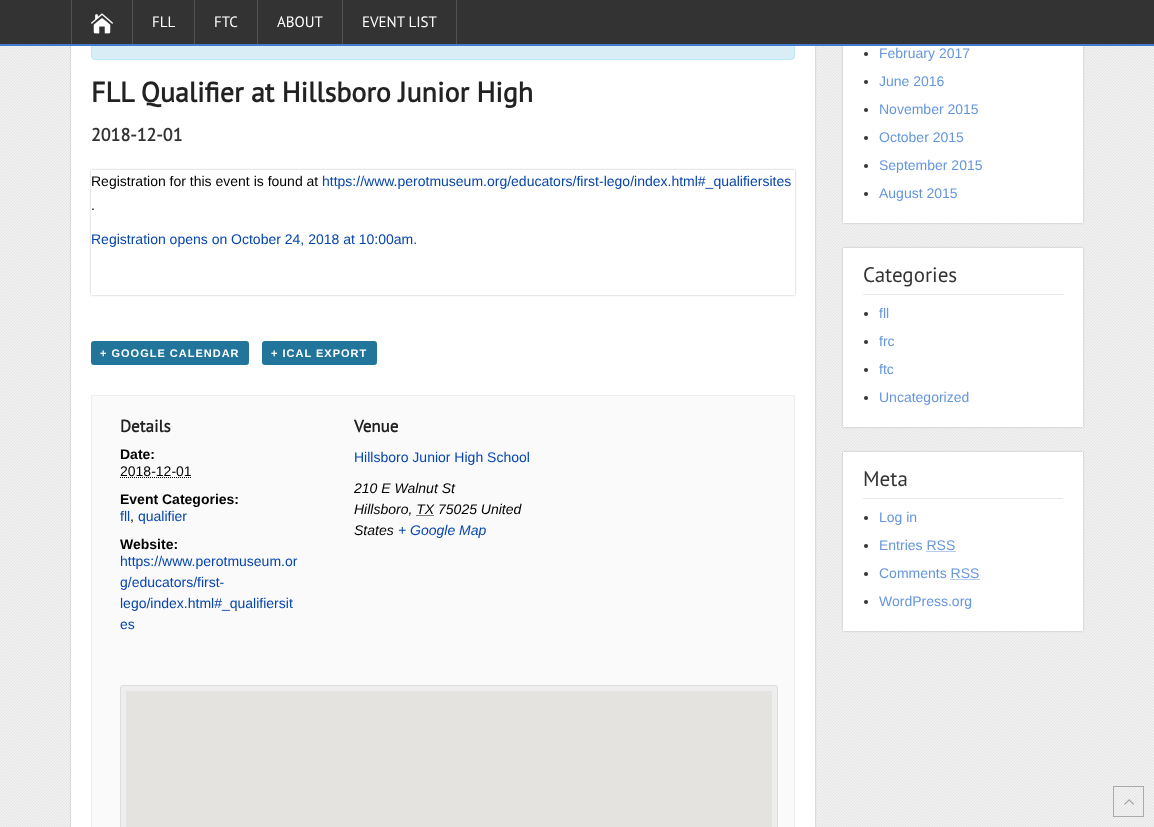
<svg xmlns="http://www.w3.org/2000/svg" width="1154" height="827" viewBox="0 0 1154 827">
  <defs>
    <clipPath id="clip1"><path d="M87 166H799V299H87ZM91 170H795V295H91Z" clip-rule="evenodd"/></clipPath>
  </defs>
  <rect width="100%" height="100%" fill="rgb(241,241,241)"/>
  <image x="0" y="46" width="1154" height="781" href="pic2.png"/>
  <rect x="71" y="-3" width="744" height="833" fill="rgb(187,187,187)" filter="blur(1px)"/>
  <rect x="71" y="46" width="744" height="781" fill="rgb(255,255,255)"/>
  <rect x="91.5" y="3.5" width="703" height="56" rx="3.5" fill="rgb(217,237,247)" stroke="rgb(188,232,241)"/>
  <rect x="843" y="-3" width="240" height="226" fill="rgb(187,187,187)" filter="blur(1px)"/>
  <rect x="0" y="0" width="1154" height="44" fill="rgb(51,51,51)"/>
  <rect x="0" y="44" width="1154" height="2" fill="rgb(67,123,208)"/>
  <rect x="132" y="0" width="1" height="44" fill="rgb(83,83,83)"/>
  <rect x="71" y="0" width="1" height="44" fill="rgb(83,83,83)"/>
  <image x="91" y="13" width="22" height="21" href="pic1.png"/>
  <rect x="194" y="0" width="1" height="44" fill="rgb(83,83,83)"/>
  <text x="152" y="27" font-family="PT Sans" font-size="15" fill="rgb(255,255,255)">FLL</text>
  <rect x="257" y="0" width="1" height="44" fill="rgb(83,83,83)"/>
  <text x="214" y="27" font-family="PT Sans" font-size="15" fill="rgb(255,255,255)">FTC</text>
  <rect x="342" y="0" width="1" height="44" fill="rgb(83,83,83)"/>
  <text x="277" y="27" font-family="PT Sans" font-size="15" fill="rgb(255,255,255)">ABOUT</text>
  <rect x="456" y="0" width="1" height="44" fill="rgb(83,83,83)"/>
  <text x="362" y="27" font-family="PT Sans" font-size="15" fill="rgb(255,255,255)">EVENT LIST</text>
  <text x="91" y="102" font-family="PT Sans" font-size="28" font-weight="bold" fill="rgb(34,34,34)">FLL Qualifier at Hillsboro Junior High</text>
  <text x="91" y="141" font-family="PT Sans" font-size="18" font-weight="bold" fill="rgb(51,51,51)">2018-12-01</text>
  <g clip-path="url(#clip1)">
    <rect x="91" y="170" width="704" height="125" fill="rgb(187,187,187)" filter="blur(1px)"/>
  </g>
  <text x="91" y="186" font-family="Liberation Sans" font-size="14" fill="rgb(0,0,0)">Registration for this event is found at</text>
  <text x="322" y="186" font-family="Liberation Sans" font-size="14" fill="rgb(6,69,173)">https://www.perotmuseum.org/educators/first-lego/index.html#_qualifiersites</text>
  <text x="91" y="210" font-family="Liberation Sans" font-size="14" fill="rgb(0,0,0)">.</text>
  <text x="91" y="244" font-family="Liberation Sans" font-size="14" fill="rgb(6,69,173)">Registration opens on October 24, 2018 at 10:00am.</text>
  <rect x="91" y="341" width="158" height="24" rx="3" fill="rgb(33,117,155)"/>
  <text x="100" y="357" font-family="Liberation Sans" font-size="11" font-weight="bold" letter-spacing="1" fill="rgb(255,255,255)">+ GOOGLE CALENDAR</text>
  <rect x="262" y="341" width="115" height="24" rx="3" fill="rgb(33,117,155)"/>
  <text x="271" y="357" font-family="Liberation Sans" font-size="11" font-weight="bold" letter-spacing="1" fill="rgb(255,255,255)">+ ICAL EXPORT</text>
  <rect x="91.5" y="395.5" width="703" height="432" fill="rgb(250,250,250)" stroke="rgb(238,238,238)"/>
  <text x="120" y="432" font-family="PT Sans" font-size="17" font-weight="bold" fill="rgb(34,34,34)">Details</text>
  <text x="120" y="459" font-family="Liberation Sans" font-size="14" font-weight="bold" fill="rgb(0,0,0)">Date:</text>
  <text x="120" y="476" font-family="Liberation Sans" font-size="14" fill="rgb(0,0,0)">2018-12-01</text>
  <path d="M120 477.5H191.5" fill="none" stroke="rgb(0,0,0)" stroke-dasharray="1 1"/>
  <text x="120" y="504" font-family="Liberation Sans" font-size="14" font-weight="bold" fill="rgb(0,0,0)">Event Categories:</text>
  <text x="120" y="521" font-family="Liberation Sans" font-size="14" fill="rgb(6,69,173)">fll</text>
  <text x="130" y="521" font-family="Liberation Sans" font-size="14" fill="rgb(0,0,0)">,</text>
  <text x="138" y="521" font-family="Liberation Sans" font-size="14" fill="rgb(6,69,173)">qualifier</text>
  <text x="120" y="549" font-family="Liberation Sans" font-size="14" font-weight="bold" fill="rgb(0,0,0)">Website:</text>
  <g font-family="Liberation Sans" font-size="14" fill="rgb(6,69,173)">
    <text>
      <tspan x="120" y="566">https://www.perotmuseum.or</tspan>
      <tspan x="120" y="587">g/educators/first-</tspan>
      <tspan x="120" y="608">lego/index.html#_qualifiersit</tspan>
      <tspan x="120" y="629">es</tspan>
    </text>
  </g>
  <text x="354" y="432" font-family="PT Sans" font-size="17" font-weight="bold" fill="rgb(34,34,34)">Venue</text>
  <text x="354" y="462" font-family="Liberation Sans" font-size="14" fill="rgb(6,69,173)">Hillsboro Junior High School</text>
  <g font-family="Liberation Sans" font-size="14" font-style="italic" fill="rgb(0,0,0)">
    <text>
      <tspan x="354" y="493">210 E Walnut St</tspan>
      <tspan x="354" y="514">Hillsboro, TX 75025 United</tspan>
    </text>
  </g>
  <path d="M416.5 515.5H434" fill="none" stroke="rgb(0,0,0)" stroke-dasharray="1 1"/>
  <text x="354" y="535" font-family="Liberation Sans" font-size="14" font-style="italic" fill="rgb(0,0,0)">States</text>
  <text x="398" y="535" font-family="Liberation Sans" font-size="14" font-style="italic" fill="rgb(6,69,173)">+ Google Map</text>
  <rect x="120.5" y="685.5" width="657" height="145" rx="2.5" fill="rgb(238,238,238)" stroke="rgb(221,221,221)"/>
  <rect x="126" y="691" width="646" height="136" fill="rgb(229,227,223)"/>
  <rect x="843" y="46" width="240" height="177" fill="rgb(255,255,255)"/>
  <circle cx="866" cy="54" r="2" fill="rgb(51,51,51)"/>
  <text x="879" y="58" font-family="Liberation Sans" font-size="14" fill="rgb(101,150,221)">February 2017</text>
  <circle cx="866" cy="82" r="2" fill="rgb(51,51,51)"/>
  <text x="879" y="86" font-family="Liberation Sans" font-size="14" fill="rgb(101,150,221)">June 2016</text>
  <circle cx="866" cy="110" r="2" fill="rgb(51,51,51)"/>
  <text x="879" y="114" font-family="Liberation Sans" font-size="14" fill="rgb(101,150,221)">November 2015</text>
  <circle cx="866" cy="138" r="2" fill="rgb(51,51,51)"/>
  <text x="879" y="142" font-family="Liberation Sans" font-size="14" fill="rgb(101,150,221)">October 2015</text>
  <circle cx="866" cy="166" r="2" fill="rgb(51,51,51)"/>
  <text x="879" y="170" font-family="Liberation Sans" font-size="14" fill="rgb(101,150,221)">September 2015</text>
  <circle cx="866" cy="194" r="2" fill="rgb(51,51,51)"/>
  <text x="879" y="198" font-family="Liberation Sans" font-size="14" fill="rgb(101,150,221)">August 2015</text>
  <rect x="843" y="248" width="240" height="179" fill="rgb(187,187,187)" filter="blur(1px)"/>
  <rect x="843" y="248" width="240" height="179" fill="rgb(255,255,255)"/>
  <rect x="863" y="294" width="200" height="1" fill="rgb(232,232,232)"/>
  <text x="863" y="282" font-family="PT Sans" font-size="21" fill="rgb(51,51,51)">Categories</text>
  <circle cx="866" cy="314" r="2" fill="rgb(51,51,51)"/>
  <text x="879" y="318" font-family="Liberation Sans" font-size="14" fill="rgb(101,150,221)">fll</text>
  <circle cx="866" cy="342" r="2" fill="rgb(51,51,51)"/>
  <text x="879" y="346" font-family="Liberation Sans" font-size="14" fill="rgb(101,150,221)">frc</text>
  <circle cx="866" cy="370" r="2" fill="rgb(51,51,51)"/>
  <text x="879" y="374" font-family="Liberation Sans" font-size="14" fill="rgb(101,150,221)">ftc</text>
  <circle cx="866" cy="398" r="2" fill="rgb(51,51,51)"/>
  <text x="879" y="402" font-family="Liberation Sans" font-size="14" fill="rgb(101,150,221)">Uncategorized</text>
  <rect x="843" y="452" width="240" height="179" fill="rgb(187,187,187)" filter="blur(1px)"/>
  <rect x="843" y="452" width="240" height="179" fill="rgb(255,255,255)"/>
  <rect x="863" y="498" width="200" height="1" fill="rgb(232,232,232)"/>
  <text x="863" y="486" font-family="PT Sans" font-size="21" fill="rgb(51,51,51)">Meta</text>
  <circle cx="866" cy="518" r="2" fill="rgb(51,51,51)"/>
  <text x="879" y="522" font-family="Liberation Sans" font-size="14" fill="rgb(101,150,221)">Log in</text>
  <circle cx="866" cy="546" r="2" fill="rgb(51,51,51)"/>
  <text x="879" y="550" font-family="Liberation Sans" font-size="14" fill="rgb(101,150,221)">Entries RSS</text>
  <path d="M926.5 551.5H955.5" fill="none" stroke="rgb(101,150,221)" stroke-dasharray="1 1"/>
  <circle cx="866" cy="574" r="2" fill="rgb(51,51,51)"/>
  <text x="879" y="578" font-family="Liberation Sans" font-size="14" fill="rgb(101,150,221)">Comments RSS</text>
  <path d="M950.5 579.5H979.5" fill="none" stroke="rgb(101,150,221)" stroke-dasharray="1 1"/>
  <circle cx="866" cy="602" r="2" fill="rgb(51,51,51)"/>
  <text x="879" y="606" font-family="Liberation Sans" font-size="14" fill="rgb(101,150,221)">WordPress.org</text>
  <rect x="1113.5" y="786.5" width="30" height="30" fill="none" stroke="rgba(17,17,17,0.3)"/>
  <image x="1124" y="799" width="10" height="6" href="pic3.png"/>
</svg>
